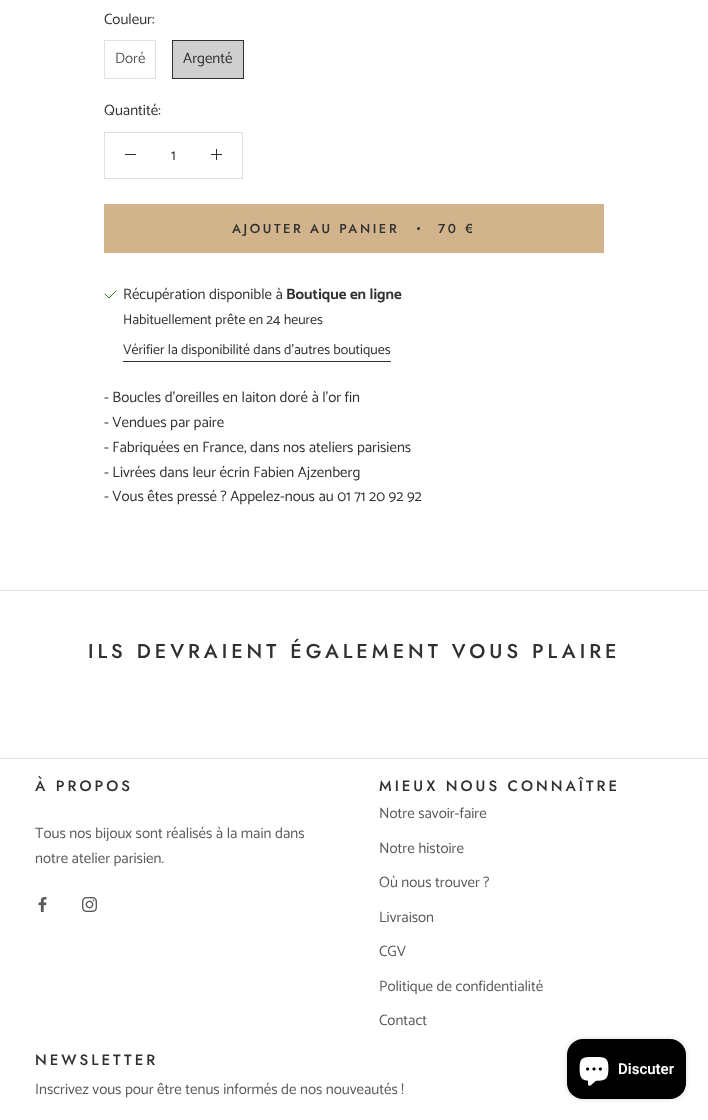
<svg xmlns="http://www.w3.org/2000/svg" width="708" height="1120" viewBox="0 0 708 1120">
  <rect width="100%" height="100%" fill="rgb(255,255,255)"/>
  <text x="104" y="24" font-family="Catamaran" font-size="15" fill="rgb(48,48,48)">Couleur:</text>
  <rect x="104.5" y="40.5" width="51" height="38" fill="none" stroke="rgb(224,224,224)"/>
  <text x="115" y="63" font-family="Catamaran" font-size="15" fill="rgb(89,89,89)">Doré</text>
  <rect x="172.5" y="40.5" width="71" height="38" fill="rgb(207,207,207)" stroke="rgb(48,48,48)"/>
  <g font-family="Catamaran" font-size="15" fill="rgb(48,48,48)">
    <text x="183" y="63">Argenté</text>
    <text x="104" y="115">Quantité:</text>
  </g>
  <rect x="104.5" y="132.5" width="138" height="46" fill="none" stroke="rgb(224,224,224)"/>
  <rect x="125" y="154" width="11" height="1" fill="rgb(48,48,48)"/>
  <text x="171" y="160" font-family="Catamaran" font-size="15" fill="rgb(48,48,48)">1</text>
  <rect x="216" y="149" width="1" height="11" fill="rgb(48,48,48)"/>
  <rect x="211" y="154" width="11" height="1" fill="rgb(48,48,48)"/>
  <rect x="104.5" y="204.5" width="499" height="48" fill="none" stroke="rgb(210,180,140)"/>
  <rect x="105" y="205" width="498" height="47" fill="rgb(210,180,140)"/>
  <text x="232" y="233" font-family="Jost" font-size="13" font-weight="500" letter-spacing="2.6" fill="rgb(48,48,48)">AJOUTER AU PANIER</text>
  <circle cx="418.5" cy="228.5" r="1.5" fill="rgb(48,48,48)"/>
  <text x="438" y="233" font-family="Jost" font-size="13" font-weight="500" letter-spacing="2.6" fill="rgb(48,48,48)">70 €</text>
  <path d="M105 294L109 298L116 291" fill="none" stroke="rgb(48,122,7)" stroke-linecap="square"/>
  <text x="123" y="299" font-family="Catamaran" font-size="15" fill="rgb(48,48,48)">Récupération disponible à</text>
  <text x="286" y="299" font-family="Catamaran" font-size="15" font-weight="bold" fill="rgb(48,48,48)">Boutique en ligne</text>
  <g font-family="Catamaran" font-size="14" fill="rgb(48,48,48)">
    <text x="123" y="324">Habituellement prête en 24 heures</text>
    <text x="123" y="354">Vérifier la disponibilité dans d'autres boutiques</text>
  </g>
  <rect x="123" y="361" width="268" height="1" fill="rgb(48,48,48)"/>
  <g font-family="Catamaran" font-size="15" fill="rgb(48,48,48)">
    <text>
      <tspan x="104" y="402">- Boucles d'oreilles en laiton doré à l'or fin</tspan>
      <tspan x="104" y="427">- Vendues par paire</tspan>
      <tspan x="104" y="452">- Fabriquées en France, dans nos ateliers parisiens</tspan>
      <tspan x="104" y="477">- Livrées dans leur écrin Fabien Ajzenberg</tspan>
      <tspan x="104" y="501">- Vous êtes pressé ? Appelez-nous au 01 71 20 92 92</tspan>
    </text>
  </g>
  <rect x="0" y="590" width="708" height="1" fill="rgb(224,224,224)"/>
  <text x="88" y="658" font-family="Jost" font-size="20" font-weight="500" letter-spacing="4" fill="rgb(48,48,48)">ILS DEVRAIENT ÉGALEMENT VOUS PLAIRE</text>
  <rect x="0" y="758" width="708" height="1" fill="rgb(224,224,224)"/>
  <text x="35" y="791" font-family="Jost" font-size="15" font-weight="500" letter-spacing="3" fill="rgb(48,48,48)">À PROPOS</text>
  <g font-family="Catamaran" font-size="15" fill="rgb(89,89,89)">
    <text>
      <tspan x="35" y="838">Tous nos bijoux sont réalisés à la main dans</tspan>
      <tspan x="35" y="863">notre atelier parisien.</tspan>
    </text>
  </g>
  <image x="38" y="897" width="9" height="15" href="pic1.png"/>
  <image x="82" y="897" width="15" height="15" href="pic2.png"/>
  <text x="379" y="791" font-family="Jost" font-size="15" font-weight="500" letter-spacing="3" fill="rgb(48,48,48)">MIEUX NOUS CONNAÎTRE</text>
  <g font-family="Catamaran" font-size="15" fill="rgb(89,89,89)">
    <text x="379" y="818">Notre savoir-faire</text>
    <text x="379" y="853">Notre histoire</text>
    <text x="379" y="887">Où nous trouver ?</text>
    <text x="379" y="922">Livraison</text>
    <text x="379" y="956">CGV</text>
    <text x="379" y="991">Politique de confidentialité</text>
    <text x="379" y="1025">Contact</text>
  </g>
  <text x="35" y="1065" font-family="Jost" font-size="15" font-weight="500" letter-spacing="3" fill="rgb(48,48,48)">NEWSLETTER</text>
  <text x="35" y="1094" font-family="Catamaran" font-size="15" fill="rgb(89,89,89)">Inscrivez vous pour être tenus informés de nos nouveautés !</text>
  <rect x="567" y="1039" width="119" height="60" rx="16" fill="rgba(0,0,0,0.15)" filter="blur(2.5px)"/>
  <rect x="567" y="1039" width="119" height="60" rx="16" fill="rgb(0,0,0)"/>
  <image x="579" y="1057" width="30" height="29" href="pic3.png"/>
  <text x="618" y="1074" font-family="Roboto" font-size="15" font-weight="600" fill="rgb(255,255,255)">Discuter</text>
</svg>
